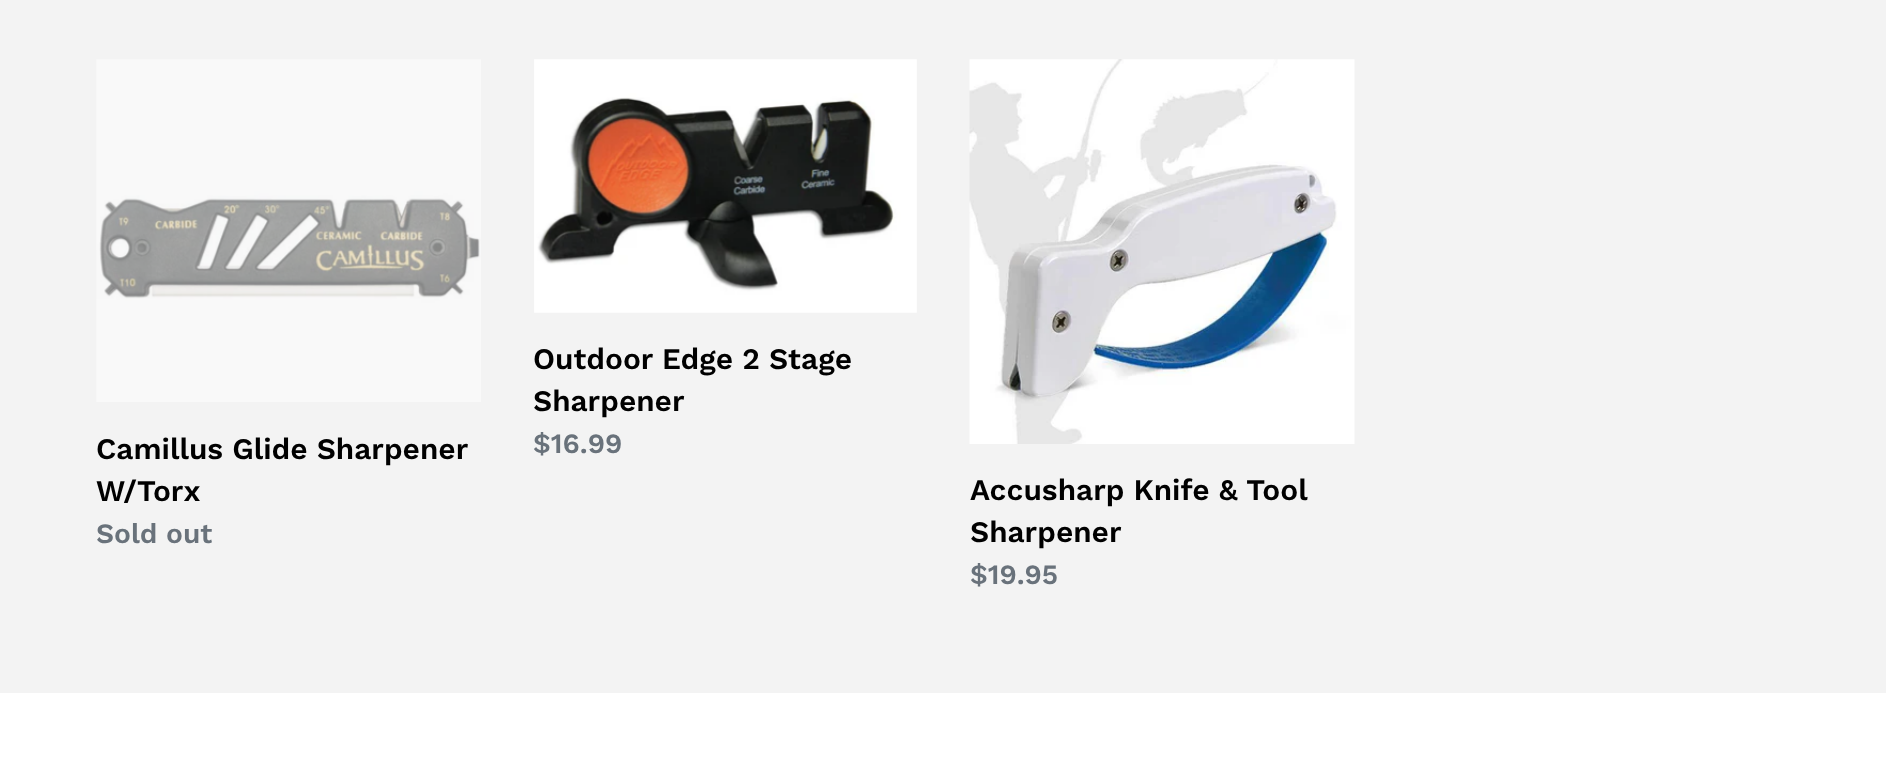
<svg xmlns="http://www.w3.org/2000/svg" width="1886" height="775" viewBox="0 0 1886 775">
  <rect width="100%" height="100%" fill="rgb(243,243,243)"/>
  <image x="534" y="59" width="383" height="254" href="pic1.png"/>
  <g font-family="Work Sans" font-size="29.75" font-weight="600" fill="rgb(0,0,0)">
    <text>
      <tspan x="533" y="369">Outdoor Edge 2 Stage</tspan>
      <tspan x="533" y="411">Sharpener</tspan>
    </text>
  </g>
  <text x="533" y="453" font-family="Work Sans" font-size="28" font-weight="600" fill="rgb(105,114,123)">$16.99</text>
  <image x="96" y="59" width="385" height="343" href="pic2.png"/>
  <g font-family="Work Sans" font-size="29.75" font-weight="600" fill="rgb(0,0,0)">
    <text>
      <tspan x="96" y="459">Camillus Glide Sharpener</tspan>
      <tspan x="96" y="501">W/Torx</tspan>
    </text>
  </g>
  <text x="96" y="543" font-family="Work Sans" font-size="28" font-weight="600" fill="rgb(105,114,123)">Sold out</text>
  <image x="969" y="59" width="386" height="385" href="pic3.png"/>
  <g font-family="Work Sans" font-size="29.75" font-weight="600" fill="rgb(0,0,0)">
    <text>
      <tspan x="970" y="500">Accusharp Knife &amp; Tool</tspan>
      <tspan x="970" y="542">Sharpener</tspan>
    </text>
  </g>
  <text x="970" y="584" font-family="Work Sans" font-size="28" font-weight="600" fill="rgb(105,114,123)">$19.95</text>
  <rect x="0" y="693" width="1886" height="82" fill="rgb(255,255,255)"/>
</svg>
